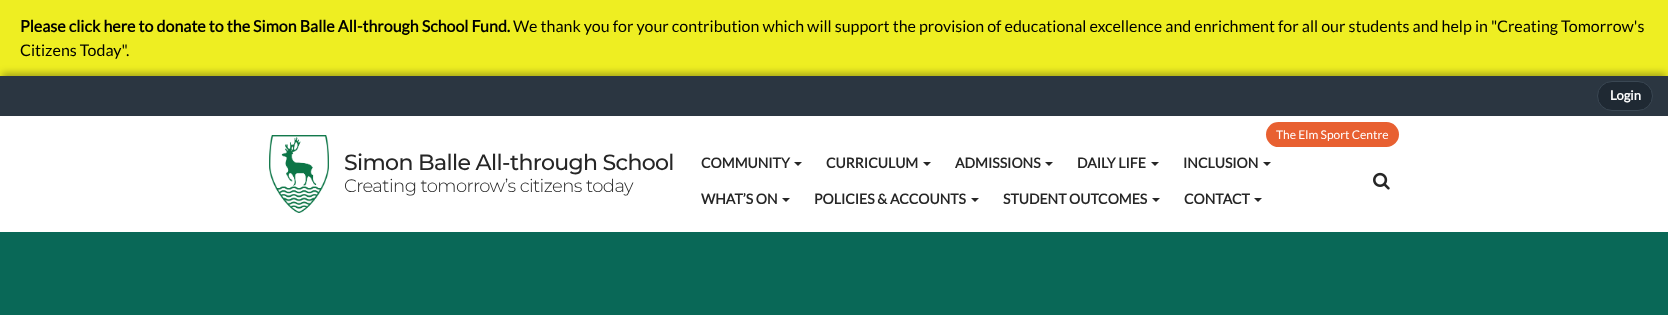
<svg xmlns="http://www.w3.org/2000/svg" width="1668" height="315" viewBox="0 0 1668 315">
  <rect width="100%" height="100%" fill="rgb(255,255,255)"/>
  <rect x="0" y="0" width="1668" height="76" fill="rgb(238,238,34)"/>
  <text x="20" y="32" font-family="Lato" font-size="16" font-weight="bold" fill="rgb(0,0,0)">Please click here to donate to the Simon Balle All-through School Fund.</text>
  <g font-family="Lato" font-size="16" fill="rgb(0,0,0)">
    <text x="513" y="32">We thank you for your contribution which will support the provision of educational excellence and enrichment for all our students and help in "Creating Tomorrow's</text>
    <text x="20" y="56">Citizens Today".</text>
  </g>
  <rect x="2" y="73" width="1664" height="36" fill="rgba(0,0,0,0.3)" filter="blur(3.5px)"/>
  <rect x="0" y="76" width="1668" height="40" fill="rgb(43,54,65)"/>
  <rect x="1597.5" y="81.5" width="55" height="29" rx="14.5" fill="rgb(31,41,51)" stroke="rgb(58,71,83)"/>
  <text x="1610" y="100" font-family="Lato" font-size="13" font-weight="bold" fill="rgb(255,255,255)">Login</text>
  <image x="269" y="135" width="60" height="78" href="pic1.png"/>
  <text x="344" y="170" font-family="Montserrat" font-size="22" font-weight="500" letter-spacing="-0.65" fill="rgb(38,38,38)">Simon Balle All-through School</text>
  <text x="344" y="192" font-family="Montserrat" font-size="18" font-weight="300" letter-spacing="-0.55" fill="rgb(38,38,38)">Creating tomorrow’s citizens today</text>
  <rect x="1266" y="122" width="133" height="25" rx="12.5" fill="rgb(232,96,49)"/>
  <text x="1276" y="139" font-family="Lato" font-size="12" fill="rgb(255,255,255)">The Elm Sport Centre</text>
  <text x="701" y="168" font-family="Lato" font-size="14" font-weight="bold" fill="rgb(38,38,38)">COMMUNITY</text>
  <path d="M794 162H802L798 166Z" fill="rgb(38,38,38)"/>
  <text x="826" y="168" font-family="Lato" font-size="14" font-weight="bold" fill="rgb(38,38,38)">CURRICULUM</text>
  <path d="M923 162H931L927 166Z" fill="rgb(38,38,38)"/>
  <text x="955" y="168" font-family="Lato" font-size="14" font-weight="bold" fill="rgb(38,38,38)">ADMISSIONS</text>
  <path d="M1045 162H1053L1049 166Z" fill="rgb(38,38,38)"/>
  <text x="1077" y="168" font-family="Lato" font-size="14" font-weight="bold" fill="rgb(38,38,38)">DAILY LIFE</text>
  <path d="M1151 162H1159L1155 166Z" fill="rgb(38,38,38)"/>
  <text x="1183" y="168" font-family="Lato" font-size="14" font-weight="bold" fill="rgb(38,38,38)">INCLUSION</text>
  <path d="M1263 162H1271L1267 166Z" fill="rgb(38,38,38)"/>
  <text x="701" y="204" font-family="Lato" font-size="14" font-weight="bold" fill="rgb(38,38,38)">WHAT’S ON</text>
  <path d="M782 198H790L786 202Z" fill="rgb(38,38,38)"/>
  <text x="814" y="204" font-family="Lato" font-size="14" font-weight="bold" fill="rgb(38,38,38)">POLICIES &amp; ACCOUNTS</text>
  <path d="M971 198H979L975 202Z" fill="rgb(38,38,38)"/>
  <text x="1003" y="204" font-family="Lato" font-size="14" font-weight="bold" fill="rgb(38,38,38)">STUDENT OUTCOMES</text>
  <path d="M1152 198H1160L1156 202Z" fill="rgb(38,38,38)"/>
  <text x="1184" y="204" font-family="Lato" font-size="14" font-weight="bold" fill="rgb(38,38,38)">CONTACT</text>
  <path d="M1254 198H1262L1258 202Z" fill="rgb(38,38,38)"/>
  <image x="1373" y="172" width="17" height="18" href="pic2.png"/>
  <rect x="0" y="232" width="1668" height="83" fill="rgb(9,104,87)"/>
</svg>
